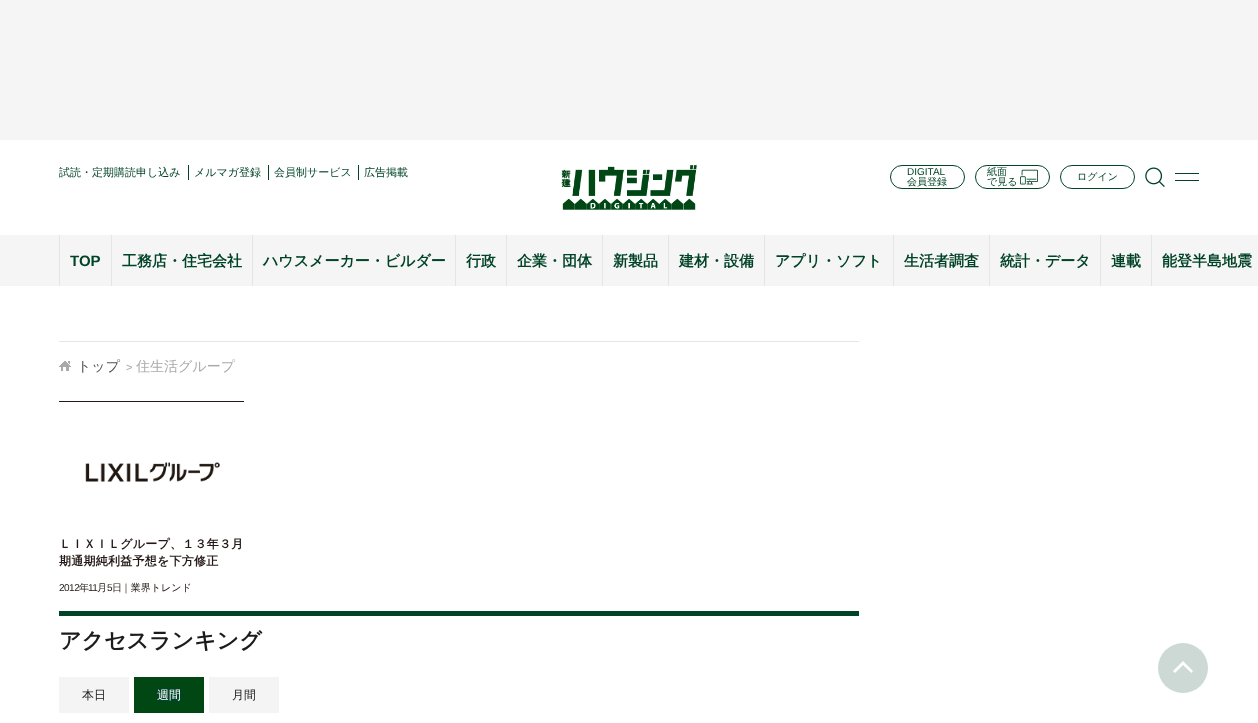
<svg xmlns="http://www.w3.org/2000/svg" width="1258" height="723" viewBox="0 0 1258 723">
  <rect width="100%" height="100%" fill="rgb(255,255,255)"/>
  <rect x="0" y="0" width="1258" height="140" fill="rgb(245,245,245)"/>
  <text x="59" y="176" font-family="WenQuanYi Zen Hei" font-size="11" font-weight="500" fill="rgb(0,67,39)">試読・定期購読申し込み</text>
  <rect x="188" y="165" width="1" height="15" fill="rgb(0,67,39)"/>
  <text x="194" y="176" font-family="WenQuanYi Zen Hei" font-size="11" font-weight="500" fill="rgb(0,67,39)">メルマガ登録</text>
  <rect x="268" y="165" width="1" height="15" fill="rgb(0,67,39)"/>
  <text x="274" y="176" font-family="WenQuanYi Zen Hei" font-size="11" font-weight="500" fill="rgb(0,67,39)">会員制サービス</text>
  <rect x="358" y="165" width="1" height="15" fill="rgb(0,67,39)"/>
  <text x="364" y="176" font-family="WenQuanYi Zen Hei" font-size="11" font-weight="500" fill="rgb(0,67,39)">広告掲載</text>
  <image x="561" y="165" width="136" height="45" href="pic1.png"/>
  <rect x="890.5" y="165.5" width="74" height="23" rx="11.5" fill="none" stroke="rgb(0,67,39)"/>
  <text x="907" y="175" font-family="Liberation Sans" font-size="10" fill="rgb(0,67,39)">DIGITAL</text>
  <text x="907" y="185" font-family="WenQuanYi Zen Hei" font-size="10" font-weight="500" fill="rgb(0,67,39)">会員登録</text>
  <rect x="975.5" y="165.5" width="74" height="23" rx="11.5" fill="none" stroke="rgb(0,67,39)"/>
  <g font-family="WenQuanYi Zen Hei" font-size="10" font-weight="500" fill="rgb(0,67,39)">
    <text>
      <tspan x="987" y="175">紙面</tspan>
      <tspan x="987" y="185">で見る</tspan>
    </text>
  </g>
  <image x="1020" y="169" width="18" height="16" href="pic2.png"/>
  <rect x="1060.5" y="165.5" width="74" height="23" rx="11.5" fill="none" stroke="rgb(0,67,39)"/>
  <text x="1077" y="180" font-family="WenQuanYi Zen Hei" font-size="10" font-weight="500" fill="rgb(0,67,39)">ログイン</text>
  <image x="1145" y="167" width="20" height="20" href="pic3.png"/>
  <rect x="1175" y="173" width="24" height="1" fill="rgb(0,67,39)"/>
  <rect x="1175" y="180" width="24" height="1" fill="rgb(0,67,39)"/>
  <rect x="0" y="235" width="1258" height="51" fill="rgb(245,245,245)"/>
  <rect x="59" y="235" width="1" height="51" fill="rgb(229,229,229)"/>
  <text x="70" y="266" font-family="Liberation Sans" font-size="15" font-weight="bold" fill="rgb(0,67,39)">TOP</text>
  <rect x="111" y="235" width="1" height="51" fill="rgb(229,229,229)"/>
  <text x="122" y="266" font-family="WenQuanYi Zen Hei" font-size="15" font-weight="bold" fill="rgb(0,67,39)">工務店・住宅会社</text>
  <rect x="252" y="235" width="1" height="51" fill="rgb(229,229,229)"/>
  <text x="263" y="266" font-family="WenQuanYi Zen Hei" font-size="15" font-weight="bold" fill="rgb(0,67,39)">ハウスメーカー・ビルダー</text>
  <rect x="455" y="235" width="1" height="51" fill="rgb(229,229,229)"/>
  <text x="466" y="266" font-family="WenQuanYi Zen Hei" font-size="15" font-weight="bold" fill="rgb(0,67,39)">行政</text>
  <rect x="506" y="235" width="1" height="51" fill="rgb(229,229,229)"/>
  <text x="517" y="266" font-family="WenQuanYi Zen Hei" font-size="15" font-weight="bold" fill="rgb(0,67,39)">企業・団体</text>
  <rect x="602" y="235" width="1" height="51" fill="rgb(229,229,229)"/>
  <text x="613" y="266" font-family="WenQuanYi Zen Hei" font-size="15" font-weight="bold" fill="rgb(0,67,39)">新製品</text>
  <rect x="668" y="235" width="1" height="51" fill="rgb(229,229,229)"/>
  <text x="679" y="266" font-family="WenQuanYi Zen Hei" font-size="15" font-weight="bold" fill="rgb(0,67,39)">建材・設備</text>
  <rect x="764" y="235" width="1" height="51" fill="rgb(229,229,229)"/>
  <text x="775" y="266" font-family="WenQuanYi Zen Hei" font-size="15" font-weight="bold" fill="rgb(0,67,39)">アプリ・ソフト</text>
  <rect x="893" y="235" width="1" height="51" fill="rgb(229,229,229)"/>
  <text x="904" y="266" font-family="WenQuanYi Zen Hei" font-size="15" font-weight="bold" fill="rgb(0,67,39)">生活者調査</text>
  <rect x="989" y="235" width="1" height="51" fill="rgb(229,229,229)"/>
  <text x="1000" y="266" font-family="WenQuanYi Zen Hei" font-size="15" font-weight="bold" fill="rgb(0,67,39)">統計・データ</text>
  <rect x="1100" y="235" width="1" height="51" fill="rgb(229,229,229)"/>
  <text x="1111" y="266" font-family="WenQuanYi Zen Hei" font-size="15" font-weight="bold" fill="rgb(0,67,39)">連載</text>
  <rect x="1151" y="235" width="1" height="51" fill="rgb(229,229,229)"/>
  <text x="1162" y="266" font-family="WenQuanYi Zen Hei" font-size="15" font-weight="bold" fill="rgb(0,67,39)">能登半島地震</text>
  <rect x="59" y="341" width="800" height="1" fill="rgb(229,229,229)"/>
  <image x="59" y="361" width="12" height="10" href="pic4.png"/>
  <text x="77" y="371" font-family="WenQuanYi Zen Hei" font-size="14" font-weight="500" fill="rgb(83,83,83)">トップ</text>
  <text x="126" y="371" font-family="Liberation Sans" font-size="11" fill="rgb(170,170,170)">&gt;</text>
  <text x="136" y="371" font-family="WenQuanYi Zen Hei" font-size="14" font-weight="500" fill="rgb(170,170,170)">住生活グループ</text>
  <rect x="59" y="401" width="185" height="1" fill="rgb(35,25,22)"/>
  <image x="85" y="462" width="135" height="20" href="pic5.png"/>
  <g font-family="WenQuanYi Zen Hei" font-size="12" font-weight="bold" letter-spacing="0.25" fill="rgb(35,25,22)">
    <text>
      <tspan x="59" y="548">ＬＩＸＩＬグループ、１３年３月</tspan>
      <tspan x="59" y="565">期通期純利益予想を下方修正</tspan>
    </text>
  </g>
  <text x="59" y="591" font-family="Liberation Sans" font-size="10" letter-spacing="-0.5" fill="rgb(35,25,22)">2012</text>
  <text x="79" y="591" font-family="WenQuanYi Zen Hei" font-size="10" font-weight="500" letter-spacing="-0.5" fill="rgb(35,25,22)">年</text>
  <text x="88" y="591" font-family="Liberation Sans" font-size="10" letter-spacing="-0.5" fill="rgb(35,25,22)">11</text>
  <text x="97" y="591" font-family="WenQuanYi Zen Hei" font-size="10" font-weight="500" letter-spacing="-0.5" fill="rgb(35,25,22)">月</text>
  <text x="107" y="591" font-family="Liberation Sans" font-size="10" letter-spacing="-0.5" fill="rgb(35,25,22)">5</text>
  <text x="112" y="591" font-family="WenQuanYi Zen Hei" font-size="10" font-weight="500" letter-spacing="-0.5" fill="rgb(35,25,22)">日</text>
  <text x="121" y="591" font-family="WenQuanYi Zen Hei" font-size="10" font-weight="500" fill="rgb(35,25,22)">｜業界トレンド</text>
  <rect x="59" y="611" width="800" height="5" fill="rgb(0,67,39)"/>
  <text x="59" y="648" font-family="WenQuanYi Zen Hei" font-size="22" font-weight="bold" fill="rgb(27,27,27)">アクセスランキング</text>
  <rect x="59" y="677" width="70" height="36" fill="rgb(244,244,244)"/>
  <text x="82" y="699" font-family="WenQuanYi Zen Hei" font-size="12" font-weight="500" fill="rgb(27,27,27)">本日</text>
  <rect x="134" y="677" width="70" height="36" fill="rgb(0,71,20)"/>
  <rect x="157" y="688" width="24" height="14" fill="rgb(0,67,39)"/>
  <text x="157" y="699" font-family="WenQuanYi Zen Hei" font-size="12" font-weight="500" fill="rgb(255,255,255)">週間</text>
  <rect x="209" y="677" width="70" height="36" fill="rgb(244,244,244)"/>
  <text x="232" y="699" font-family="WenQuanYi Zen Hei" font-size="12" font-weight="500" fill="rgb(27,27,27)">月間</text>
  <circle cx="1183" cy="668" r="25" fill="rgb(204,217,212)"/>
  <path d="M1173 671L1175 673L1183 665L1191.5 673L1193 671L1183 661Z" fill="rgb(255,255,255)"/>
</svg>
